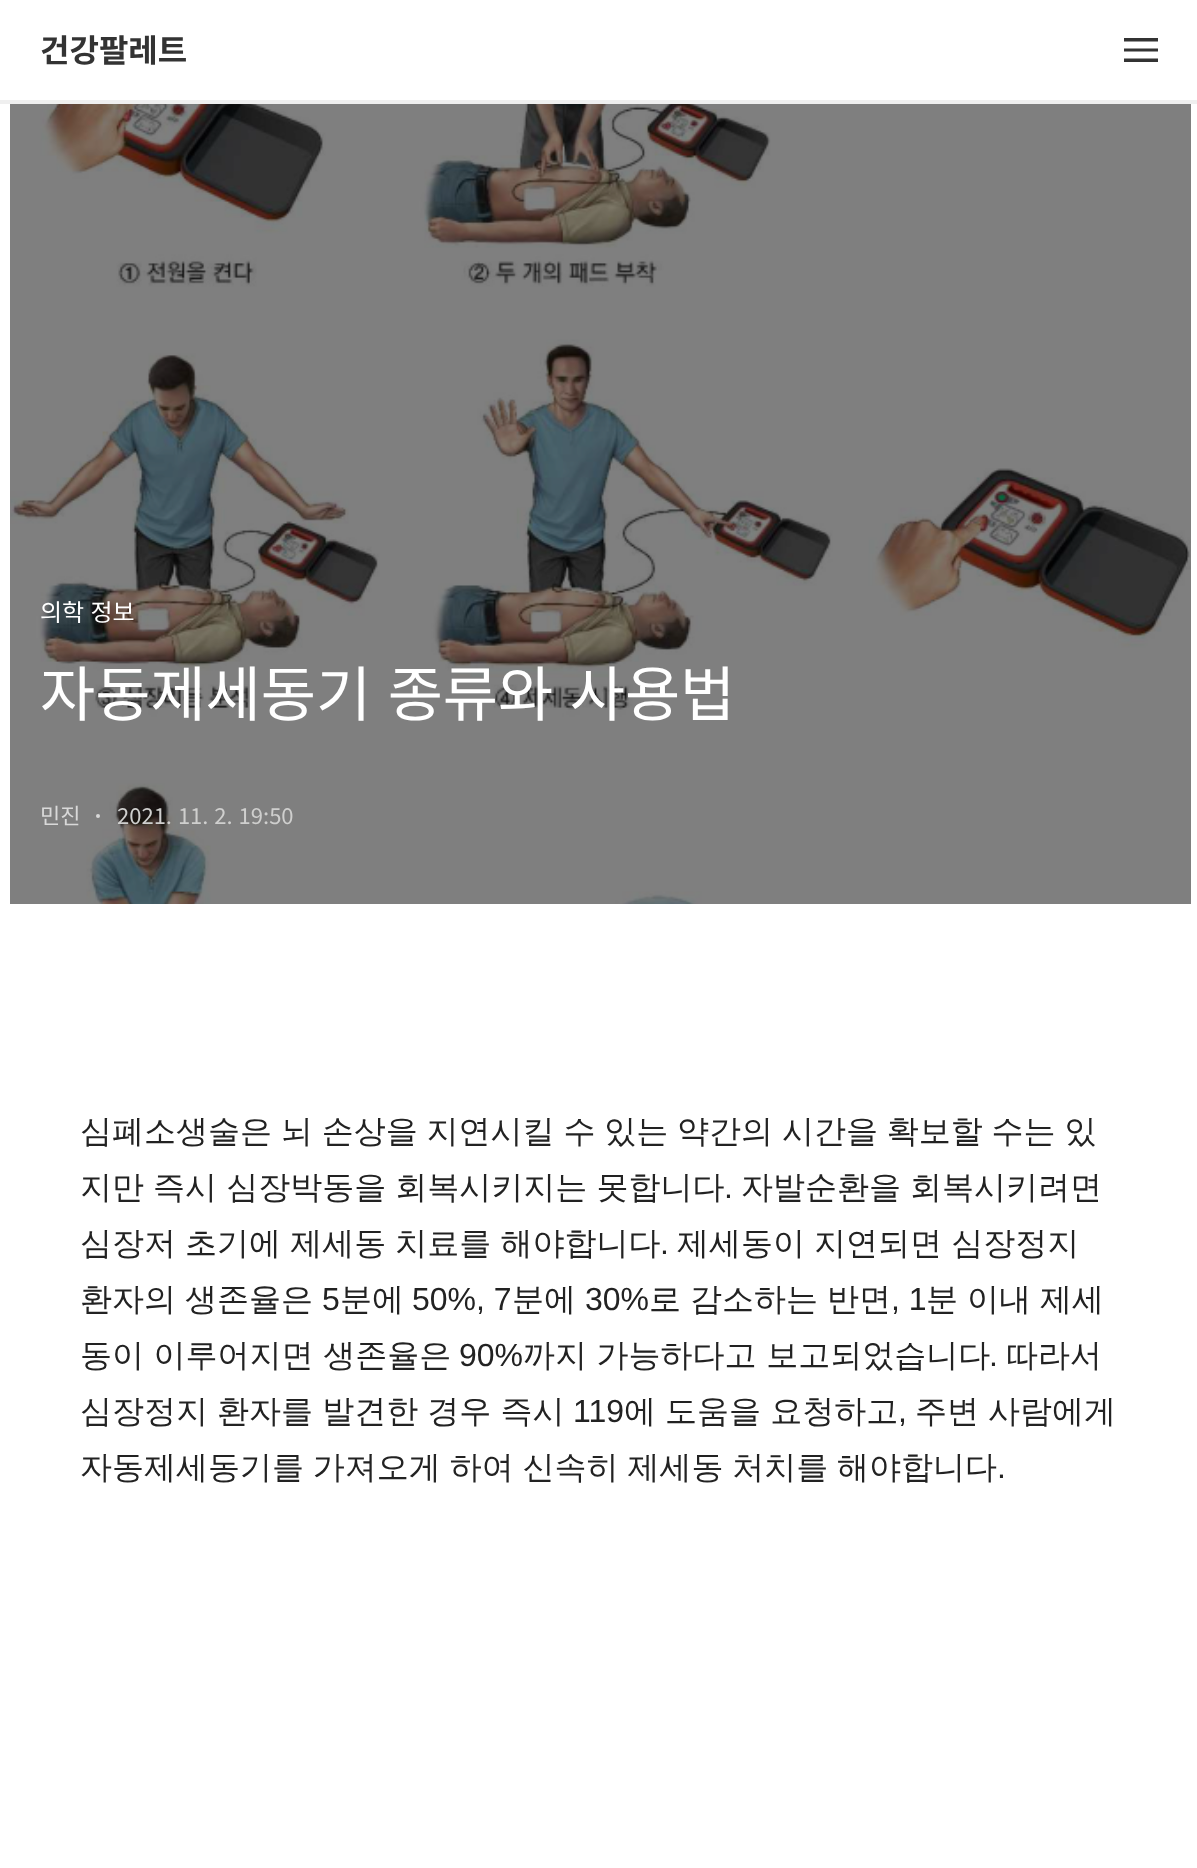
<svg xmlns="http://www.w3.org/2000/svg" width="1197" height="1868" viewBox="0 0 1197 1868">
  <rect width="100%" height="100%" fill="rgb(255,255,255)"/>
  <rect x="0" y="100" width="1197" height="4" fill="rgb(239,239,239)"/>
  <text x="40" y="62" font-family="Noto Sans KR" font-size="32" font-weight="bold" fill="rgb(51,51,51)">건강팔레트</text>
  <path d="M1124 38H1158V41.5H1124ZM1124 48.5H1158V51.5H1124ZM1124 58.5H1158V62H1124Z" fill="rgb(51,51,51)" fill-rule="evenodd"/>
  <image x="10" y="104" width="1181" height="800" href="pic1.png"/>
  <text x="40" y="621" word-spacing="1" font-family="Noto Sans KR" font-size="24" fill="rgb(255,255,255)">의학 정보</text>
  <text x="40" y="716" word-spacing="3" font-family="Noto Sans KR" font-size="60" fill="rgb(255,255,255)">자동제세동기 종류와 사용법</text>
  <text x="40" y="824" font-family="Noto Sans KR" font-size="22" fill="rgb(217,217,217)">민진</text>
  <circle cx="98" cy="816" r="2" fill="rgb(217,217,217)"/>
  <text x="117" y="824" word-spacing="1" font-family="Noto Sans KR" font-size="22" fill="rgb(207,207,206)">2021. 11. 2. 19:50</text>
  <g font-family="WenQuanYi Zen Hei" font-size="32" font-weight="500" fill="rgb(34,34,34)">
    <text>
      <tspan x="80" y="1142" word-spacing="-0.75">심폐소생술은 뇌 손상을 지연시킬 수 있는 약간의 시간을 확보할 수는 있</tspan>
      <tspan x="80" y="1198" word-spacing="-0.5">지만 즉시 심장박동을 회복시키지는 못합니다</tspan>
    </text>
  </g>
  <text x="724" y="1198" font-family="Liberation Sans" font-size="32" fill="rgb(34,34,34)">.</text>
  <g font-family="WenQuanYi Zen Hei" font-size="32" font-weight="500" fill="rgb(34,34,34)">
    <text x="741" y="1198" word-spacing="-0.5">자발순환을 회복시키려면</text>
    <text x="80" y="1254" word-spacing="-0.5">심장저 초기에 제세동 치료를 해야합니다</text>
  </g>
  <text x="660" y="1254" font-family="Liberation Sans" font-size="32" fill="rgb(34,34,34)">.</text>
  <g font-family="WenQuanYi Zen Hei" font-size="32" font-weight="500" fill="rgb(34,34,34)">
    <text x="677" y="1254" word-spacing="-0.5">제세동이 지연되면 심장정지</text>
    <text x="80" y="1310">환자의</text>
    <text x="185" y="1310">생존율은</text>
  </g>
  <text x="322" y="1310" font-family="Liberation Sans" font-size="32" fill="rgb(34,34,34)">5</text>
  <text x="340" y="1310" font-family="WenQuanYi Zen Hei" font-size="32" font-weight="500" fill="rgb(34,34,34)">분에</text>
  <text x="412" y="1310" font-family="Liberation Sans" font-size="32" fill="rgb(34,34,34)">50%, 7</text>
  <text x="512" y="1310" font-family="WenQuanYi Zen Hei" font-size="32" font-weight="500" fill="rgb(34,34,34)">분에</text>
  <text x="585" y="1310" font-family="Liberation Sans" font-size="32" fill="rgb(34,34,34)">30%</text>
  <g font-family="WenQuanYi Zen Hei" font-size="32" font-weight="500" fill="rgb(34,34,34)">
    <text x="649" y="1310">로</text>
    <text x="690" y="1310">감소하는</text>
    <text x="827" y="1310">반면</text>
  </g>
  <text x="891" y="1310" font-family="Liberation Sans" font-size="32" fill="rgb(34,34,34)">, 1</text>
  <g font-family="WenQuanYi Zen Hei" font-size="32" font-weight="500" fill="rgb(34,34,34)">
    <text x="926" y="1310">분</text>
    <text x="967" y="1310">이내</text>
    <text x="1040" y="1310">제세</text>
    <text x="80" y="1366">동이 이루어지면 생존율은</text>
  </g>
  <text x="459" y="1366" font-family="Liberation Sans" font-size="32" fill="rgb(34,34,34)">90%</text>
  <text x="523" y="1366" font-family="WenQuanYi Zen Hei" font-size="32" font-weight="500" fill="rgb(34,34,34)">까지 가능하다고 보고되었습니다</text>
  <text x="989" y="1366" font-family="Liberation Sans" font-size="32" fill="rgb(34,34,34)">.</text>
  <g font-family="WenQuanYi Zen Hei" font-size="32" font-weight="500" fill="rgb(34,34,34)">
    <text x="1006" y="1366">따라서</text>
    <text x="80" y="1422" word-spacing="-0.5">심장정지 환자를 발견한 경우 즉시</text>
  </g>
  <text x="573" y="1422" font-family="Liberation Sans" font-size="32" fill="rgb(34,34,34)">119</text>
  <text x="624" y="1422" word-spacing="-0.5" font-family="WenQuanYi Zen Hei" font-size="32" font-weight="500" fill="rgb(34,34,34)">에 도움을 요청하고</text>
  <text x="898" y="1422" font-family="Liberation Sans" font-size="32" fill="rgb(34,34,34)">,</text>
  <g font-family="WenQuanYi Zen Hei" font-size="32" font-weight="500" fill="rgb(34,34,34)">
    <text x="915" y="1422" word-spacing="-0.5">주변 사람에게</text>
    <text x="80" y="1478" word-spacing="-0.75">자동제세동기를 가져오게 하여 신속히 제세동 처치를 해야합니다</text>
  </g>
  <text x="997" y="1478" font-family="Liberation Sans" font-size="32" fill="rgb(34,34,34)">.</text>
</svg>
